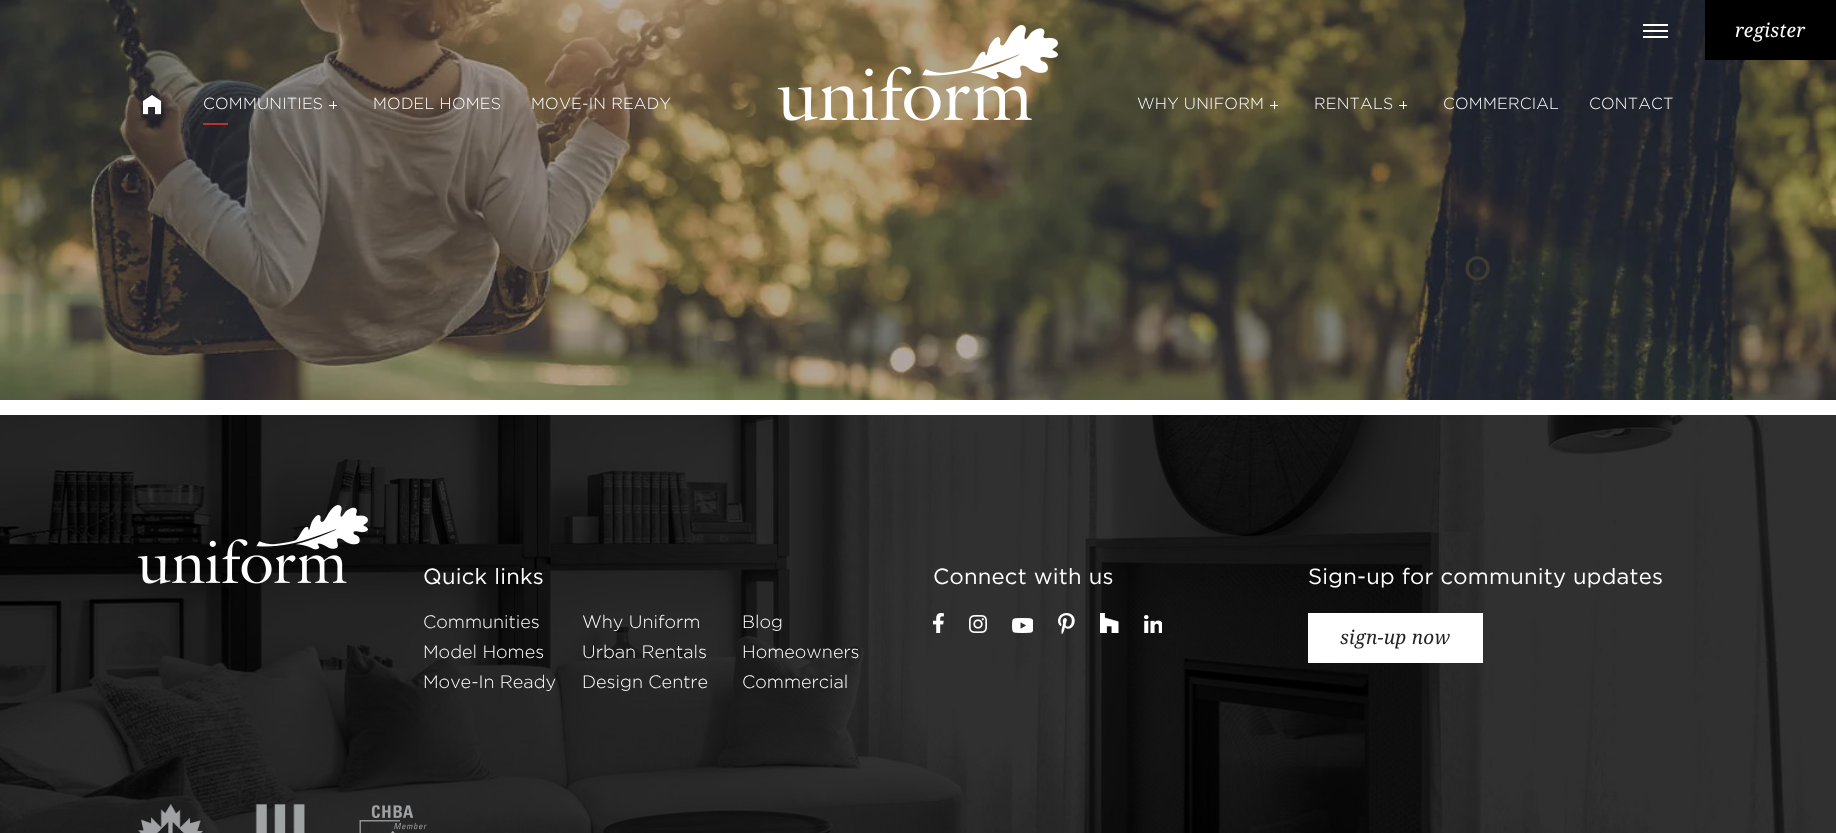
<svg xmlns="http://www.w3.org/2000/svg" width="1836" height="833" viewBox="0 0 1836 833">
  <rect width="100%" height="100%" fill="rgb(255,255,255)"/>
  <image x="0" y="0" width="1836" height="400" href="pic3.png"/>
  <image x="143" y="95" width="18" height="20" href="pic1.png"/>
  <image x="778" y="25" width="280" height="96" href="pic2.png"/>
  <rect x="1705" y="0" width="131" height="60" fill="rgb(0,0,0)"/>
  <text x="1735" y="37" font-family="Noto Serif" font-size="19" font-style="italic" letter-spacing="0.25" fill="rgb(255,255,255)">register</text>
  <rect x="1643" y="30" width="25" height="2" fill="rgb(255,255,255)"/>
  <rect x="1643" y="24" width="25" height="2" fill="rgb(255,255,255)"/>
  <rect x="1643" y="36" width="25" height="2" fill="rgb(255,255,255)"/>
  <text x="203" y="109" font-family="Gotham" font-size="16" font-weight="300" letter-spacing="0.2" fill="rgb(255,255,255)">COMMUNITIES</text>
  <rect x="329" y="105" width="8" height="1" fill="rgb(255,255,255)"/>
  <rect x="333" y="101" width="1" height="8" fill="rgb(255,255,255)"/>
  <rect x="203" y="123" width="25" height="2" fill="rgb(190,48,43)"/>
  <g font-family="Gotham" font-size="16" font-weight="300" letter-spacing="0.2" fill="rgb(255,255,255)">
    <text x="373" y="109">MODEL HOMES</text>
    <text x="531" y="109">MOVE-IN READY</text>
    <text x="1137" y="109">WHY UNIFORM</text>
  </g>
  <rect x="1270" y="105" width="8" height="1" fill="rgb(255,255,255)"/>
  <rect x="1274" y="101" width="1" height="8" fill="rgb(255,255,255)"/>
  <text x="1314" y="109" font-family="Gotham" font-size="16" font-weight="300" letter-spacing="0.2" fill="rgb(255,255,255)">RENTALS</text>
  <rect x="1399" y="105" width="8" height="1" fill="rgb(255,255,255)"/>
  <rect x="1403" y="101" width="1" height="8" fill="rgb(255,255,255)"/>
  <g font-family="Gotham" font-size="16" font-weight="300" letter-spacing="0.2" fill="rgb(255,255,255)">
    <text x="1443" y="109">COMMERCIAL</text>
    <text x="1589" y="109">CONTACT</text>
  </g>
  <text x="1463" y="280" font-family="Gotham" font-size="45" fill="rgb(62,60,48)">o</text>
  <image x="0" y="415" width="1836" height="418" href="pic4.png"/>
  <image x="138" y="505" width="230" height="79" href="pic5.png"/>
  <text x="423" y="584" font-family="Gotham" font-size="22" letter-spacing="0.25" fill="rgb(255,255,255)">Quick links</text>
  <g font-family="Gotham" font-size="18" font-weight="300" fill="rgb(255,255,255)">
    <text x="423" y="628">Communities</text>
    <text x="582" y="628">Why Uniform</text>
    <text x="742" y="628">Blog</text>
    <text x="423" y="658">Model Homes</text>
    <text x="582" y="658">Urban Rentals</text>
    <text x="742" y="658">Homeowners</text>
    <text x="423" y="688">Move-In Ready</text>
    <text x="582" y="688">Design Centre</text>
    <text x="742" y="688">Commercial</text>
  </g>
  <text x="933" y="584" font-family="Gotham" font-size="22" letter-spacing="0.25" fill="rgb(255,255,255)">Connect with us</text>
  <image x="933" y="613" width="11" height="20" href="pic6.png"/>
  <image x="969" y="615" width="18" height="18" href="pic7.png"/>
  <image x="1012" y="618" width="21" height="15" href="pic8.png"/>
  <image x="1058" y="613" width="17" height="21" href="pic9.png"/>
  <image x="1100" y="613" width="19" height="20" href="pic10.png"/>
  <image x="1144" y="615" width="18" height="18" href="pic11.png"/>
  <text x="1308" y="584" font-family="Gotham" font-size="22" letter-spacing="0.25" fill="rgb(255,255,255)">Sign-up for community updates</text>
  <rect x="1309" y="614" width="173" height="48" fill="none" stroke="rgb(255,255,255)" stroke-width="2"/>
  <rect x="1310" y="615" width="171" height="46" fill="rgb(255,255,255)"/>
  <text x="1340" y="644" font-family="Noto Serif" font-size="19" font-style="italic" letter-spacing="0.25" fill="rgb(34,34,34)">sign-up now</text>
  <image x="138" y="804" width="65" height="29" href="pic12.png"/>
  <image x="255" y="804" width="50" height="29" href="pic13.png"/>
  <image x="359" y="805" width="68" height="28" href="pic14.png"/>
</svg>
